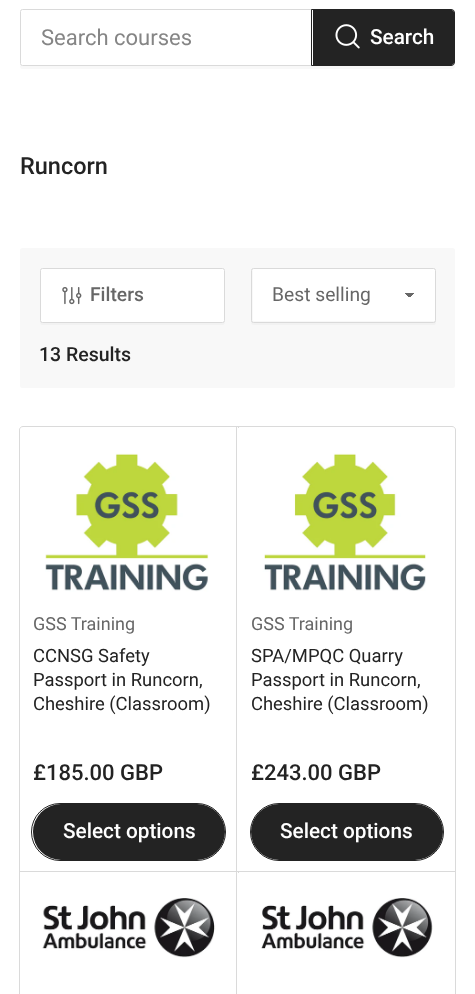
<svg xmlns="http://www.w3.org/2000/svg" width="475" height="994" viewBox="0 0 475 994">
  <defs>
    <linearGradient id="g1" gradientUnits="userSpaceOnUse" x1="410" y1="292" x2="416" y2="298"><stop offset="0.5" stop-color="rgb(103,103,103)"/><stop offset="0.5" stop-color="rgb(255,255,255)"/></linearGradient>
    <linearGradient id="g2" gradientUnits="userSpaceOnUse" x1="404" y1="298" x2="410" y2="292"><stop offset="0.5" stop-color="rgb(255,255,255)"/><stop offset="0.5" stop-color="rgb(103,103,103)"/></linearGradient>
  </defs>
  <rect width="100%" height="100%" fill="rgb(255,255,255)"/>
  <path d="M20 64V66C20 68 21 69 22 69H452C454 69 455 68 455 66V64C455 65 454 66 452 66H22C21 66 20 65 20 64Z" fill="rgb(248,248,248)"/>
  <rect x="20.5" y="9.5" width="434" height="56" rx="2" fill="none" stroke="rgb(218,218,218)"/>
  <text x="41" y="45" font-family="Roboto" font-size="22" fill="rgb(133,133,133)">Search courses</text>
  <path d="M311.5 9.5H451C453 9.5 454.5 11 454.5 13V62C454.5 64 453 65.5 451 65.5H311.5Z" fill="none" stroke="rgb(35,35,35)"/>
  <path d="M313 10H451.5C453 10 454 11 454 12.5V62.5C454 64 453 65 451.5 65H313Z" fill="rgb(35,35,35)"/>
  <image x="335" y="24" width="25" height="25" href="pic1.png"/>
  <text x="370" y="44" font-family="Roboto" font-size="20.75" font-weight="500" fill="rgb(255,255,255)">Search</text>
  <text x="20" y="174" font-family="Roboto" font-size="23.5" font-weight="500" fill="rgb(35,35,35)">Runcorn</text>
  <rect x="20" y="248" width="435" height="140" rx="2.5" fill="rgb(248,248,248)"/>
  <path d="M40 320C40 322 40 325 42 325H223C225 324 225 322 225 320C225 321 224 322 222 322H42C41 322 40 321 40 320Z" fill="rgb(242,242,242)"/>
  <rect x="40.5" y="268.5" width="184" height="54" rx="2" fill="rgb(255,255,255)" stroke="rgb(218,218,218)"/>
  <image x="62" y="287" width="20" height="18" href="pic2.png"/>
  <text x="90" y="301" font-family="Roboto" font-size="19.25" font-weight="500" fill="rgb(103,103,103)">Filters</text>
  <path d="M251 271V322C251 324 252 325 254 325H434C435 325 436 324 436 322V321C436 322 435 322 434 322H254C252 322 251 321 251 320Z" fill="rgb(242,242,242)"/>
  <rect x="253" y="269" width="182" height="52" rx="1" fill="rgb(255,255,255)"/>
  <rect x="410" y="293" width="6" height="4" fill="url(#g1)"/>
  <rect x="404" y="293" width="6" height="4" fill="url(#g2)"/>
  <rect x="251.5" y="268.5" width="184" height="54" rx="2" fill="none" stroke="rgb(218,218,218)"/>
  <text x="272" y="301" font-family="Roboto" font-size="19.25" fill="rgb(103,103,103)">Best selling</text>
  <text x="39" y="361" font-family="Roboto" font-size="19.5" font-weight="500" fill="rgb(35,35,35)">13 Results</text>
  <path d="M23 426.5H238.5V873.5H19.5V430C19.5 428 21 426.5 23 426.5Z" fill="none" stroke="rgb(218,218,218)"/>
  <path d="M22.5 428H238V873H20V430.5C20 429 21 428 22.5 428Z" fill="rgb(255,255,255)"/>
  <image x="45" y="453" width="164" height="139" href="pic3.png"/>
  <text x="33" y="630" font-family="Roboto" font-size="18" fill="rgb(103,103,103)">GSS Training</text>
  <g font-family="Roboto" font-size="18.4" fill="rgb(35,35,35)">
    <text>
      <tspan x="33" y="662">CCNSG Safety</tspan>
      <tspan x="33" y="686">Passport in Runcorn,</tspan>
      <tspan x="33" y="710">Cheshire (Classroom)</tspan>
    </text>
  </g>
  <text x="33" y="780" font-family="Roboto" font-size="22" font-weight="500" fill="rgb(35,35,35)">£185.00 GBP</text>
  <rect x="31.5" y="803.5" width="194" height="57" rx="28.5" fill="none" stroke="rgb(35,35,35)"/>
  <rect x="33" y="804" width="192" height="56" rx="28" fill="rgb(35,35,35)"/>
  <text x="63" y="838" font-family="Roboto" font-size="20.75" font-weight="500" fill="rgb(255,255,255)">Select options</text>
  <path d="M236.5 426.5H452C454 426.5 455.5 428 455.5 430V873.5H236.5Z" fill="none" stroke="rgb(218,218,218)"/>
  <path d="M238 428H452.5C454 428 455 429 455 430.5V873H238Z" fill="rgb(255,255,255)"/>
  <image x="262" y="453" width="164" height="138" href="pic4.png"/>
  <text x="251" y="630" font-family="Roboto" font-size="18" fill="rgb(103,103,103)">GSS Training</text>
  <g font-family="Roboto" font-size="18.4" fill="rgb(35,35,35)">
    <text>
      <tspan x="251" y="662">SPA/MPQC Quarry</tspan>
      <tspan x="251" y="686">Passport in Runcorn,</tspan>
      <tspan x="251" y="710">Cheshire (Classroom)</tspan>
    </text>
  </g>
  <text x="251" y="780" font-family="Roboto" font-size="22" font-weight="500" fill="rgb(35,35,35)">£243.00 GBP</text>
  <rect x="250.5" y="803.5" width="193" height="57" rx="28.5" fill="none" stroke="rgb(35,35,35)"/>
  <rect x="251" y="804" width="192" height="56" rx="28" fill="rgb(35,35,35)"/>
  <text x="280" y="838" font-family="Roboto" font-size="20.75" font-weight="500" fill="rgb(255,255,255)">Select options</text>
  <rect x="19.5" y="871.5" width="219" height="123" fill="none" stroke="rgb(218,218,218)"/>
  <rect x="20" y="873" width="218" height="1" fill="rgb(255,255,255)"/>
  <image x="42" y="898" width="174" height="60" href="pic5.png"/>
  <rect x="236.5" y="871.5" width="219" height="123" fill="none" stroke="rgb(218,218,218)"/>
  <rect x="238" y="873" width="217" height="121" fill="rgb(255,255,255)"/>
  <image x="261" y="898" width="172" height="60" href="pic6.png"/>
</svg>
